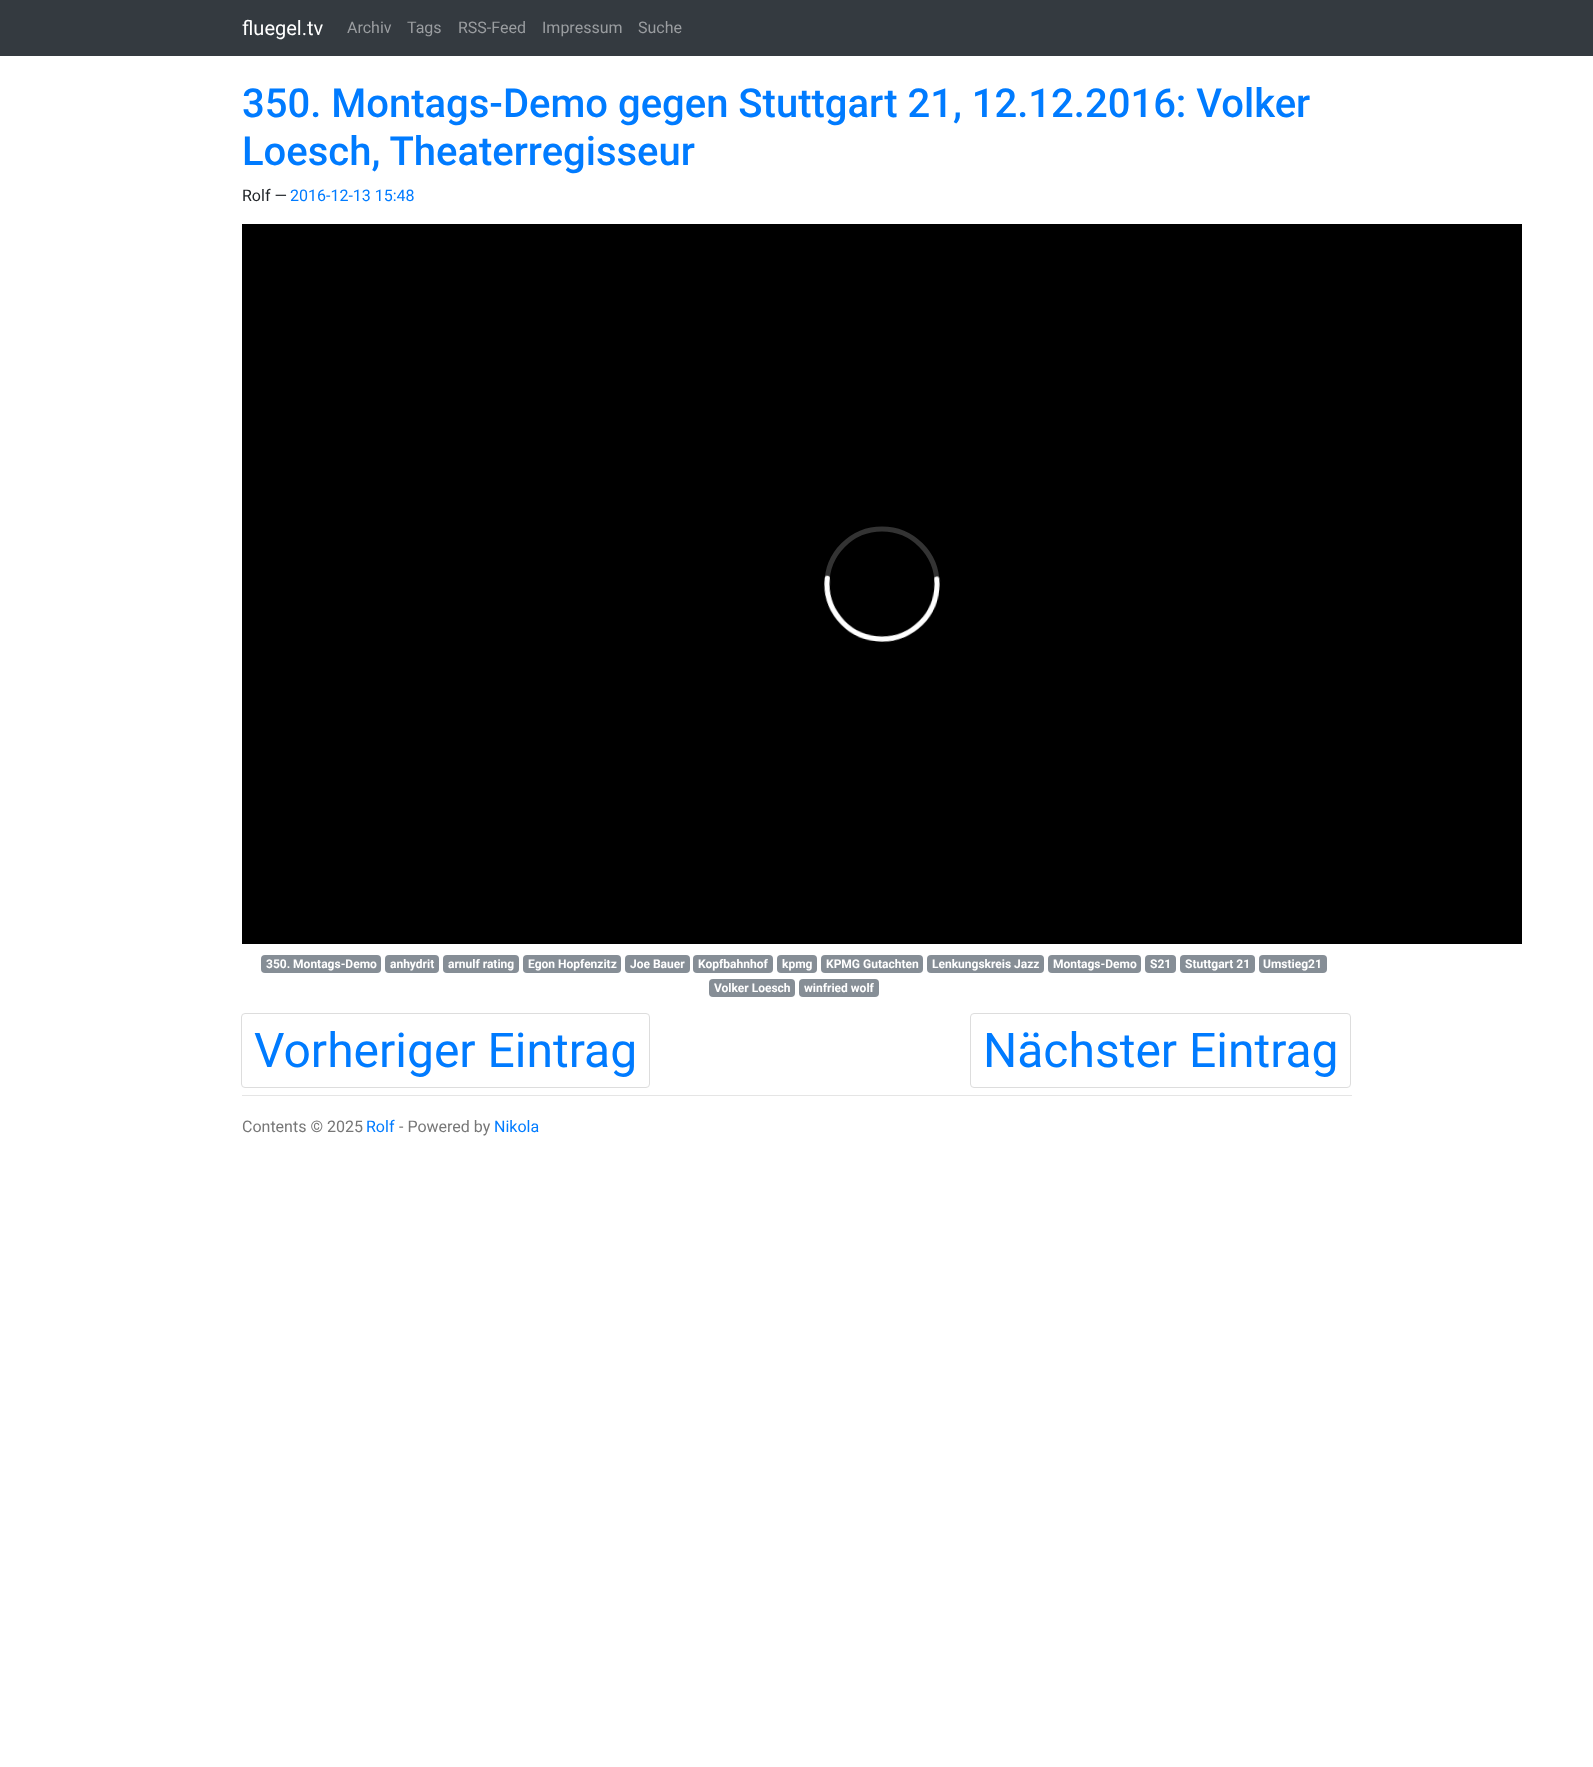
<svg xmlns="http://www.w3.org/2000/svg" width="1593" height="1767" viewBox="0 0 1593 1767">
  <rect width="100%" height="100%" fill="rgb(255,255,255)"/>
  <rect x="0" y="0" width="1593" height="56" fill="rgb(52,58,64)"/>
  <text x="242" y="35" font-family="Roboto" font-size="20" fill="rgb(255,255,255)">fluegel.tv</text>
  <g font-family="Roboto" font-size="16" fill="rgb(154,157,160)">
    <text x="347" y="33">Archiv</text>
    <text x="407" y="33">Tags</text>
    <text x="458" y="33">RSS-Feed</text>
    <text x="542" y="33">Impressum</text>
    <text x="638" y="33">Suche</text>
  </g>
  <g font-family="Roboto" font-size="40" font-weight="500" fill="rgb(0,123,255)">
    <text>
      <tspan x="242" y="117">350. Montags-Demo gegen Stuttgart 21, 12.12.2016: Volker</tspan>
      <tspan x="242" y="165">Loesch, Theaterregisseur</tspan>
    </text>
  </g>
  <text x="242" y="201" font-family="Roboto" font-size="16" fill="rgb(33,37,41)">Rolf —</text>
  <text x="290" y="201" font-family="Roboto" font-size="16" fill="rgb(0,123,255)">2016-12-13 15:48</text>
  <image x="242" y="224" width="1280" height="720" href="pic1.png"/>
  <rect x="261" y="955" width="120" height="18" rx="4" fill="rgb(134,142,150)"/>
  <text x="266" y="968" font-family="Roboto" font-size="12" font-weight="bold" fill="rgb(255,255,255)">350. Montags-Demo</text>
  <rect x="385" y="955" width="54" height="18" rx="4" fill="rgb(134,142,150)"/>
  <text x="390" y="968" font-family="Roboto" font-size="12" font-weight="bold" fill="rgb(255,255,255)">anhydrit</text>
  <rect x="443" y="955" width="76" height="18" rx="4" fill="rgb(134,142,150)"/>
  <text x="448" y="968" font-family="Roboto" font-size="12" font-weight="bold" fill="rgb(255,255,255)">arnulf rating</text>
  <rect x="523" y="955" width="98" height="18" rx="4" fill="rgb(134,142,150)"/>
  <text x="528" y="968" font-family="Roboto" font-size="12" font-weight="bold" fill="rgb(255,255,255)">Egon Hopfenzitz</text>
  <rect x="625" y="955" width="65" height="18" rx="4" fill="rgb(134,142,150)"/>
  <text x="630" y="968" font-family="Roboto" font-size="12" font-weight="bold" fill="rgb(255,255,255)">Joe Bauer</text>
  <rect x="693" y="955" width="80" height="18" rx="4" fill="rgb(134,142,150)"/>
  <text x="698" y="968" font-family="Roboto" font-size="12" font-weight="bold" fill="rgb(255,255,255)">Kopfbahnhof</text>
  <rect x="777" y="955" width="40" height="18" rx="4" fill="rgb(134,142,150)"/>
  <text x="782" y="968" font-family="Roboto" font-size="12" font-weight="bold" fill="rgb(255,255,255)">kpmg</text>
  <rect x="821" y="955" width="102" height="18" rx="4" fill="rgb(134,142,150)"/>
  <text x="826" y="968" font-family="Roboto" font-size="12" font-weight="bold" fill="rgb(255,255,255)">KPMG Gutachten</text>
  <rect x="927" y="955" width="117" height="18" rx="4" fill="rgb(134,142,150)"/>
  <text x="932" y="968" font-family="Roboto" font-size="12" font-weight="bold" fill="rgb(255,255,255)">Lenkungskreis Jazz</text>
  <rect x="1048" y="955" width="93" height="18" rx="4" fill="rgb(134,142,150)"/>
  <text x="1053" y="968" font-family="Roboto" font-size="12" font-weight="bold" fill="rgb(255,255,255)">Montags-Demo</text>
  <rect x="1145" y="955" width="31" height="18" rx="4" fill="rgb(134,142,150)"/>
  <text x="1150" y="968" font-family="Roboto" font-size="12" font-weight="bold" fill="rgb(255,255,255)">S21</text>
  <rect x="1180" y="955" width="75" height="18" rx="4" fill="rgb(134,142,150)"/>
  <text x="1185" y="968" font-family="Roboto" font-size="12" font-weight="bold" fill="rgb(255,255,255)">Stuttgart 21</text>
  <rect x="1259" y="955" width="68" height="18" rx="4" fill="rgb(134,142,150)"/>
  <text x="1263" y="968" font-family="Roboto" font-size="12" font-weight="bold" fill="rgb(255,255,255)">Umstieg21</text>
  <rect x="709" y="979" width="86" height="18" rx="4" fill="rgb(134,142,150)"/>
  <text x="714" y="992" font-family="Roboto" font-size="12" font-weight="bold" fill="rgb(255,255,255)">Volker Loesch</text>
  <rect x="799" y="979" width="80" height="18" rx="4" fill="rgb(134,142,150)"/>
  <text x="804" y="992" font-family="Roboto" font-size="12" font-weight="bold" fill="rgb(255,255,255)">winfried wolf</text>
  <rect x="241.5" y="1013.5" width="408" height="74" rx="3.5" fill="none" stroke="rgb(221,221,221)"/>
  <text x="254" y="1067" font-family="Roboto" font-size="48" fill="rgb(0,123,255)">Vorheriger Eintrag</text>
  <rect x="970.5" y="1013.5" width="380" height="74" rx="3.5" fill="none" stroke="rgb(221,221,221)"/>
  <text x="983" y="1067" font-family="Roboto" font-size="48" fill="rgb(0,123,255)">Nächster Eintrag</text>
  <rect x="242" y="1095" width="1110" height="1" fill="rgb(229,229,229)"/>
  <text x="242" y="1132" font-family="Roboto" font-size="16" fill="rgb(119,119,119)">Contents © 2025</text>
  <text x="366" y="1132" font-family="Roboto" font-size="16" fill="rgb(0,123,255)">Rolf</text>
  <text x="399" y="1132" font-family="Roboto" font-size="16" fill="rgb(119,119,119)">- Powered by</text>
  <text x="494" y="1132" font-family="Roboto" font-size="16" fill="rgb(0,123,255)">Nikola</text>
</svg>
